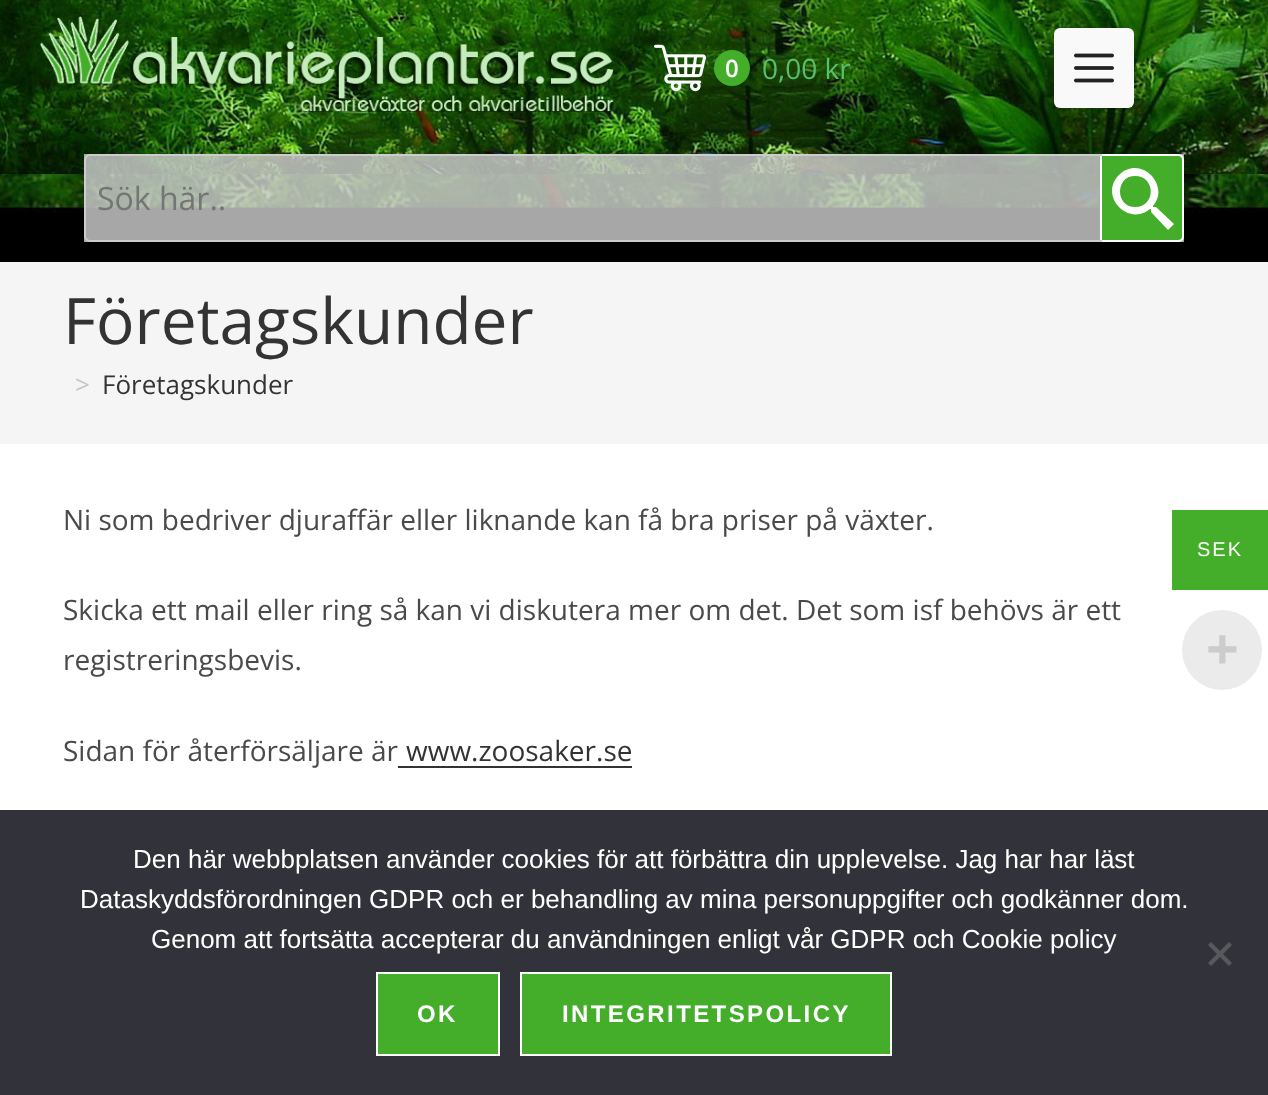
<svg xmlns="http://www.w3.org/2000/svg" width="1268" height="1095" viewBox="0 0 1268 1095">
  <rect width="100%" height="100%" fill="rgb(255,255,255)"/>
  <rect x="0" y="213" width="1268" height="49" fill="rgb(0,0,0)"/>
  <image x="0" y="174" width="1268" height="39" href="pic1.png"/>
  <image x="0" y="0" width="1268" height="174" href="pic2.png"/>
  <image x="40" y="16" width="574" height="96" href="pic3.png"/>
  <image x="654" y="44" width="52" height="48" href="pic4.png"/>
  <circle cx="732" cy="68" r="18" fill="rgb(68,174,43)"/>
  <text x="725" y="77" font-family="Open Sans" font-size="24" font-weight="600" fill="rgb(255,255,255)">0</text>
  <text x="762" y="79" font-family="Open Sans" font-size="28" fill="rgb(87,191,109)">0,00 kr</text>
  <rect x="1054" y="28" width="80" height="80" rx="6" fill="rgb(249,249,249)"/>
  <image x="1074" y="53" width="40" height="30" href="pic5.png"/>
  <rect x="84" y="154" width="1100" height="88" fill="rgba(204,204,204,0.82)"/>
  <path d="M1101 155H1178C1181 155 1183 157 1183 160V236C1183 239 1181 241 1178 241H1101Z" fill="rgb(68,174,43)" stroke="rgb(255,255,255)" stroke-width="2"/>
  <path d="M90 154H1102V242H90C87 242 84 239 84 236V160C84 157 87 154 90 154ZM90 156H1102V240H90C88 240 86 238 86 236V160C86 158 88 156 90 156Z" fill="rgb(204,204,204)" fill-rule="evenodd"/>
  <text x="97" y="210" font-family="Open Sans" font-size="32" fill="rgb(117,117,117)">Sök här..</text>
  <path d="M1156 207H1153V206C1171 185 1140 154 1119 175C1098 196 1129 227 1150 209H1151V212L1168 230L1174 224ZM1135 207C1115 207 1115 176 1135 176C1156 176 1156 207 1135 207Z" fill="rgb(255,255,255)"/>
  <rect x="0" y="262" width="1268" height="182" fill="rgb(245,245,245)"/>
  <text x="63" y="344" font-family="Open Sans" font-size="64" fill="rgb(51,51,51)">Företagskunder</text>
  <text x="75" y="394" font-family="Open Sans" font-size="26" fill="rgb(198,198,198)">&gt;</text>
  <text x="102" y="394" font-family="Open Sans" font-size="26" fill="rgb(51,51,51)">Företagskunder</text>
  <g font-family="Open Sans" font-size="28" fill="rgb(74,74,74)">
    <text x="63" y="530">Ni som bedriver djuraffär eller liknande kan få bra priser på växter.</text>
    <text>
      <tspan x="63" y="620">Skicka ett mail eller ring så kan vi diskutera mer om det. Det som isf behövs är ett</tspan>
      <tspan x="63" y="670">registreringsbevis.</tspan>
    </text>
    <text x="63" y="761">Sidan för återförsäljare är</text>
  </g>
  <text x="406" y="761" font-family="Open Sans" font-size="28" fill="rgb(51,51,51)">www.zoosaker.se</text>
  <rect x="398" y="766" width="234" height="2" fill="rgb(51,51,51)"/>
  <rect x="1172" y="510" width="96" height="80" fill="rgb(68,174,43)"/>
  <text x="1197" y="556" font-family="Liberation Sans" font-size="20" letter-spacing="2" fill="rgb(255,255,255)">SEK</text>
  <circle cx="1222" cy="650" r="40" fill="rgb(235,235,235)"/>
  <text x="1206" y="668" font-family="Liberation Sans" font-size="56" font-weight="bold" fill="rgb(204,204,204)">+</text>
  <rect x="0" y="810" width="1268" height="285" fill="rgb(50,50,58)"/>
  <g font-family="Liberation Sans" font-size="26" fill="rgb(255,255,255)">
    <text x="133" y="868">Den här webbplatsen använder cookies för att förbättra din upplevelse. Jag har har läst</text>
    <text x="80" y="908">Dataskyddsförordningen GDPR och er behandling av mina personuppgifter och godkänner dom.</text>
    <text x="151" y="948">Genom att fortsätta accepterar du användningen enligt vår GDPR och Cookie policy</text>
  </g>
  <path d="M1229 942L1232 945L1211 966L1208 963Z" fill="rgb(89,89,93)"/>
  <path d="M1208 945L1211 942L1232 963L1229 966Z" fill="rgb(89,89,93)"/>
  <rect x="377" y="973" width="122" height="82" fill="rgb(68,174,43)" stroke="rgb(255,255,255)" stroke-width="2"/>
  <text x="417" y="1022" font-family="Liberation Sans" font-size="24" font-weight="bold" letter-spacing="2.4" fill="rgb(255,255,255)">OK</text>
  <rect x="521" y="973" width="370" height="82" fill="rgb(68,174,43)" stroke="rgb(255,255,255)" stroke-width="2"/>
  <text x="562" y="1022" font-family="Liberation Sans" font-size="24" font-weight="bold" letter-spacing="2.4" fill="rgb(255,255,255)">INTEGRITETSPOLICY</text>
</svg>
